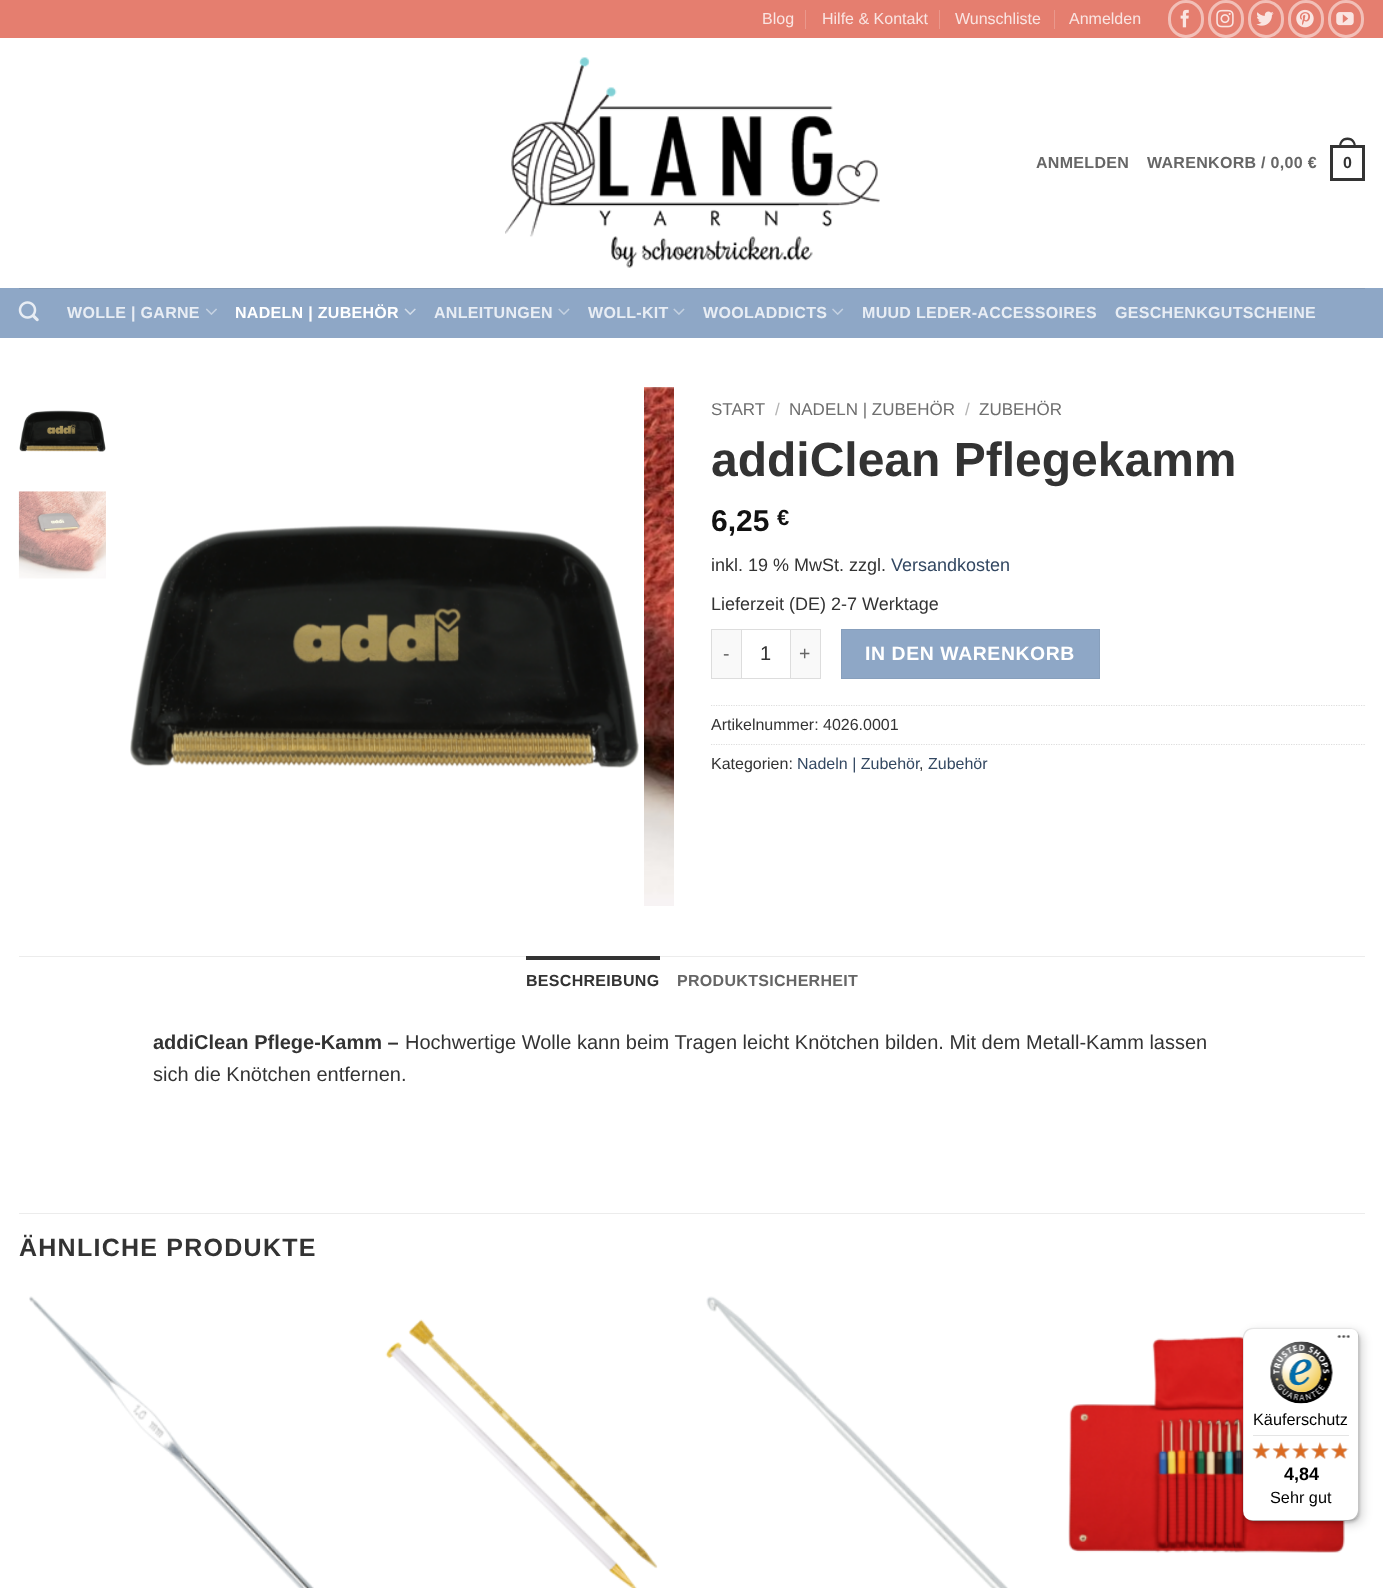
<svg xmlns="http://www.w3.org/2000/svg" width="1383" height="1588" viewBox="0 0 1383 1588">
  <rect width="100%" height="100%" fill="rgb(255,255,255)"/>
  <rect x="0" y="0" width="1383" height="38" fill="rgb(229,126,111)"/>
  <text x="762" y="24" font-family="Liberation Sans" font-size="16" fill="rgb(250,229,226)">Blog</text>
  <rect x="805" y="10" width="1" height="19" fill="rgb(234,152,140)"/>
  <text x="822" y="24" font-family="Liberation Sans" font-size="16" fill="rgb(250,229,226)">Hilfe &amp; Kontakt</text>
  <rect x="939" y="10" width="1" height="19" fill="rgb(234,152,140)"/>
  <text x="955" y="24" font-family="Liberation Sans" font-size="16" fill="rgb(250,229,226)">Wunschliste</text>
  <rect x="1054" y="10" width="1" height="19" fill="rgb(234,152,140)"/>
  <text x="1069" y="24" font-family="Liberation Sans" font-size="16" fill="rgb(250,229,226)">Anmelden</text>
  <rect x="1169.5" y="1.5" width="33" height="35" rx="16.5" fill="none" stroke="rgb(242,191,183)" stroke-width="3"/>
  <image x="1180" y="9" width="9" height="19" href="pic1.png"/>
  <rect x="1209.5" y="1.5" width="33" height="35" rx="16.5" fill="none" stroke="rgb(242,191,183)" stroke-width="3"/>
  <image x="1216" y="9" width="18" height="19" href="pic2.png"/>
  <rect x="1249.5" y="1.5" width="33" height="35" rx="16.5" fill="none" stroke="rgb(242,191,183)" stroke-width="3"/>
  <image x="1256" y="11" width="18" height="15" href="pic3.png"/>
  <rect x="1289.5" y="1.5" width="33" height="35" rx="16.5" fill="none" stroke="rgb(242,191,183)" stroke-width="3"/>
  <image x="1296" y="9" width="18" height="19" href="pic4.png"/>
  <rect x="1329.5" y="1.5" width="33" height="35" rx="16.5" fill="none" stroke="rgb(242,191,183)" stroke-width="3"/>
  <image x="1336" y="12" width="18" height="14" href="pic5.png"/>
  <image x="505" y="57" width="375" height="211" href="pic6.png"/>
  <g font-family="Liberation Sans" font-size="16" font-weight="bold" letter-spacing="0.3" fill="rgb(102,102,102)">
    <text x="1036" y="168">ANMELDEN</text>
    <text x="1147" y="168">WARENKORB / 0,00 €</text>
  </g>
  <rect x="1331.5" y="146.5" width="32" height="33" fill="none" stroke="rgb(51,51,51)" stroke-width="3"/>
  <path d="M1347.5 137.5C1353.5 137.5 1356 142 1356 147.5H1339C1339 142 1341.5 137.5 1347.5 137.5ZM1347.5 140C1352 140 1354 143.5 1354 147.5H1341C1341 143.5 1343 140 1347.5 140Z" fill="rgb(51,51,51)" fill-rule="evenodd"/>
  <text x="1343" y="168" font-family="Liberation Sans" font-size="16" font-weight="bold" letter-spacing="0.3" fill="rgb(51,51,51)">0</text>
  <rect x="0" y="288" width="1383" height="50" fill="rgb(142,167,198)"/>
  <rect x="19" y="288" width="1346" height="1" fill="rgb(133,155,183)"/>
  <image x="18" y="301" width="21" height="21" href="pic7.png"/>
  <text x="67" y="318" font-family="Liberation Sans" font-size="16" font-weight="bold" letter-spacing="0.3" fill="rgb(232,237,244)">WOLLE | GARNE</text>
  <image x="206" y="308" width="11" height="7" href="pic8.png"/>
  <text x="235" y="318" font-family="Liberation Sans" font-size="16" font-weight="bold" letter-spacing="0.3" fill="rgb(255,255,255)">NADELN | ZUBEHÖR</text>
  <image x="404" y="308" width="12" height="7" href="pic9.png"/>
  <text x="434" y="318" font-family="Liberation Sans" font-size="16" font-weight="bold" letter-spacing="0.3" fill="rgb(232,237,244)">ANLEITUNGEN</text>
  <image x="558" y="308" width="12" height="7" href="pic10.png"/>
  <text x="588" y="318" font-family="Liberation Sans" font-size="16" font-weight="bold" letter-spacing="0.3" fill="rgb(232,237,244)">WOLL-KIT</text>
  <image x="673" y="308" width="12" height="7" href="pic10.png"/>
  <text x="703" y="318" font-family="Liberation Sans" font-size="16" font-weight="bold" letter-spacing="0.3" fill="rgb(232,237,244)">WOOLADDICTS</text>
  <image x="832" y="308" width="12" height="7" href="pic11.png"/>
  <g font-family="Liberation Sans" font-size="16" font-weight="bold" letter-spacing="0.3" fill="rgb(232,237,244)">
    <text x="862" y="318">MUUD LEDER-ACCESSOIRES</text>
    <text x="1115" y="318">GESCHENKGUTSCHEINE</text>
  </g>
  <image x="19" y="410" width="87" height="42" href="pic12.png"/>
  <image x="18" y="491" width="88" height="88" href="pic13.png"/>
  <image x="130" y="525" width="509" height="243" href="pic14.png"/>
  <image x="644" y="387" width="30" height="519" href="pic15.png"/>
  <text x="711" y="415" font-family="Liberation Sans" font-size="17" fill="rgb(110,110,110)">START</text>
  <text x="775" y="415" font-family="Liberation Sans" font-size="17" fill="rgb(178,178,178)">/</text>
  <text x="789" y="415" font-family="Liberation Sans" font-size="17" fill="rgb(110,110,110)">NADELN | ZUBEHÖR</text>
  <text x="965" y="415" font-family="Liberation Sans" font-size="17" fill="rgb(178,178,178)">/</text>
  <text x="979" y="415" font-family="Liberation Sans" font-size="17" fill="rgb(110,110,110)">ZUBEHÖR</text>
  <text x="711" y="476" font-family="Liberation Sans" font-size="48" font-weight="bold" fill="rgb(51,51,51)">addiClean Pflegekamm</text>
  <text x="711" y="531" font-family="Liberation Sans" font-size="30" font-weight="bold" fill="rgb(17,17,17)">6,25</text>
  <text x="777" y="525" font-family="Liberation Sans" font-size="22" font-weight="bold" fill="rgb(17,17,17)">€</text>
  <text x="711" y="571" font-family="Liberation Sans" font-size="18" fill="rgb(51,51,51)">inkl. 19 % MwSt. zzgl.</text>
  <text x="891" y="571" font-family="Liberation Sans" font-size="18" fill="rgb(51,72,98)">Versandkosten</text>
  <text x="711" y="610" font-family="Liberation Sans" font-size="18" fill="rgb(51,51,51)">Lieferzeit (DE) 2-7 Werktage</text>
  <rect x="712" y="630" width="29" height="48" fill="rgb(249,249,249)"/>
  <rect x="711" y="629" width="30" height="1" fill="rgb(221,221,221)"/>
  <rect x="711" y="678" width="30" height="1" fill="rgb(221,221,221)"/>
  <rect x="711" y="629" width="1" height="50" fill="rgb(221,221,221)"/>
  <text x="723" y="660" font-family="Liberation Sans" font-size="19.4" letter-spacing="0.6" fill="rgb(102,102,102)">-</text>
  <rect x="741.5" y="629.5" width="49" height="49" fill="none" stroke="rgb(221,221,221)"/>
  <text x="760" y="660" font-family="Liberation Sans" font-size="20" fill="rgb(51,51,51)">1</text>
  <rect x="791" y="630" width="29" height="48" fill="rgb(249,249,249)"/>
  <rect x="791" y="629" width="30" height="1" fill="rgb(221,221,221)"/>
  <rect x="820" y="629" width="1" height="50" fill="rgb(221,221,221)"/>
  <rect x="791" y="678" width="30" height="1" fill="rgb(221,221,221)"/>
  <text x="799" y="660" font-family="Liberation Sans" font-size="19.4" letter-spacing="0.6" fill="rgb(102,102,102)">+</text>
  <rect x="841.5" y="629.5" width="258" height="49" fill="rgb(142,167,198)" stroke="rgb(135,159,188)"/>
  <text x="865" y="660" font-family="Liberation Sans" font-size="19.4" font-weight="bold" letter-spacing="0.6" fill="rgb(255,255,255)">IN DEN WARENKORB</text>
  <path d="M711 705.5H1365" fill="none" stroke="rgb(221,221,221)" stroke-width="1.2" stroke-dasharray="1.25 1.25"/>
  <text x="711" y="730" font-family="Liberation Sans" font-size="16" fill="rgb(51,51,51)">Artikelnummer: 4026.0001</text>
  <path d="M711 744.5H1365" fill="none" stroke="rgb(221,221,221)" stroke-width="1.2" stroke-dasharray="1.25 1.25"/>
  <text x="711" y="769" font-family="Liberation Sans" font-size="16" fill="rgb(51,51,51)">Kategorien:</text>
  <text x="797" y="769" font-family="Liberation Sans" font-size="16" fill="rgb(51,72,98)">Nadeln | Zubehör</text>
  <text x="919" y="769" font-family="Liberation Sans" font-size="16" fill="rgb(51,51,51)">,</text>
  <text x="928" y="769" font-family="Liberation Sans" font-size="16" fill="rgb(51,72,98)">Zubehör</text>
  <rect x="19" y="956" width="1346" height="1" fill="rgb(236,236,236)"/>
  <rect x="526" y="956" width="134" height="4" fill="rgb(51,51,51)"/>
  <text x="526" y="986" font-family="Liberation Sans" font-size="16" font-weight="bold" letter-spacing="0.3" fill="rgb(51,51,51)">BESCHREIBUNG</text>
  <text x="677" y="986" font-family="Liberation Sans" font-size="16" font-weight="bold" letter-spacing="0.3" fill="rgb(102,102,102)">PRODUKTSICHERHEIT</text>
  <text x="153" y="1049" font-family="Liberation Sans" font-size="20" font-weight="bold" fill="rgb(51,51,51)">addiClean Pflege-Kamm –</text>
  <g font-family="Liberation Sans" font-size="20" fill="rgb(51,51,51)">
    <text x="405" y="1049">Hochwertige Wolle kann beim Tragen leicht Knötchen bilden. Mit dem Metall-Kamm lassen</text>
    <text x="153" y="1081">sich die Knötchen entfernen.</text>
  </g>
  <rect x="19" y="1213" width="1346" height="1" fill="rgb(236,236,236)"/>
  <text x="19" y="1256" font-family="Liberation Sans" font-size="25" font-weight="bold" letter-spacing="1.25" fill="rgb(51,51,51)">ÄHNLICHE PRODUKTE</text>
  <image x="29" y="1296" width="285" height="292" href="pic16.png"/>
  <image x="385" y="1319" width="273" height="269" href="pic17.png"/>
  <image x="706" y="1296" width="302" height="292" href="pic18.png"/>
  <image x="1068" y="1336" width="277" height="217" href="pic19.png"/>
  <rect x="1246" y="1331" width="117" height="194" rx="10" fill="rgba(0,0,0,0.15)" filter="blur(5px)"/>
  <rect x="1244" y="1329" width="116" height="194" rx="10" fill="rgba(0,0,0,0.15)" filter="blur(1px)"/>
  <rect x="1243" y="1328" width="116" height="193" rx="10" fill="rgb(255,255,255)"/>
  <path d="M1254 1329H1350C1352 1329 1354 1329 1355 1330C1354 1329 1351 1328 1349 1328H1253C1247 1328 1243 1332 1243 1338V1511C1243 1513 1244 1516 1245 1517C1244 1516 1244 1514 1244 1512V1339C1244 1333 1248 1329 1254 1329Z" fill="rgba(0,0,0,0.1)"/>
  <path d="M1247 1519C1249 1520 1251 1521 1253 1521H1349C1355 1521 1359 1517 1359 1511V1338C1359 1336 1358 1334 1357 1332C1358 1333 1358 1335 1358 1336V1510C1358 1516 1353 1520 1348 1520H1251Z" fill="rgba(0,0,0,0.2)"/>
  <path d="M1247 1519C1248 1520 1251 1521 1253 1521H1349C1355 1521 1359 1517 1359 1511V1338C1359 1336 1358 1333 1357 1332C1358 1333 1358 1335 1358 1337V1510C1358 1516 1354 1520 1348 1520H1252C1250 1520 1248 1520 1247 1519Z" fill="rgba(50,50,50,0.2)"/>
  <path d="M1348 1521H1349C1355 1521 1359 1517 1359 1511V1338C1359 1336 1358 1333 1357 1332C1358 1333 1358 1335 1358 1337V1511C1358 1516 1354 1521 1348 1521Z" fill="rgba(255,255,255,0.3)"/>
  <image x="1337" y="1335" width="13" height="3" href="pic20.png"/>
  <image x="1270" y="1341" width="63" height="63" href="pic21.png"/>
  <text x="1253" y="1425" font-family="Liberation Sans" font-size="16.25" fill="rgb(0,0,0)">Käuferschutz</text>
  <rect x="1253" y="1435" width="96" height="1" fill="rgb(229,229,229)"/>
  <image x="1252" y="1443" width="18" height="15" href="pic22.png"/>
  <image x="1273" y="1442" width="17" height="17" href="pic23.png"/>
  <image x="1292" y="1443" width="17" height="15" href="pic24.png"/>
  <image x="1311" y="1442" width="18" height="17" href="pic25.png"/>
  <image x="1331" y="1443" width="18" height="15" href="pic26.png"/>
  <image x="1252" y="1442" width="18" height="17" href="pic27.png"/>
  <image x="1272" y="1442" width="18" height="17" href="pic28.png"/>
  <image x="1292" y="1442" width="17" height="17" href="pic29.png"/>
  <image x="1311" y="1442" width="18" height="17" href="pic30.png"/>
  <image x="1331" y="1442" width="16" height="17" href="pic31.png"/>
  <text x="1284" y="1480" font-family="Liberation Sans" font-size="18" font-weight="bold" fill="rgb(0,0,0)">4,84</text>
  <text x="1270" y="1503" font-family="Liberation Sans" font-size="16.25" fill="rgb(0,0,0)">Sehr gut</text>
</svg>
